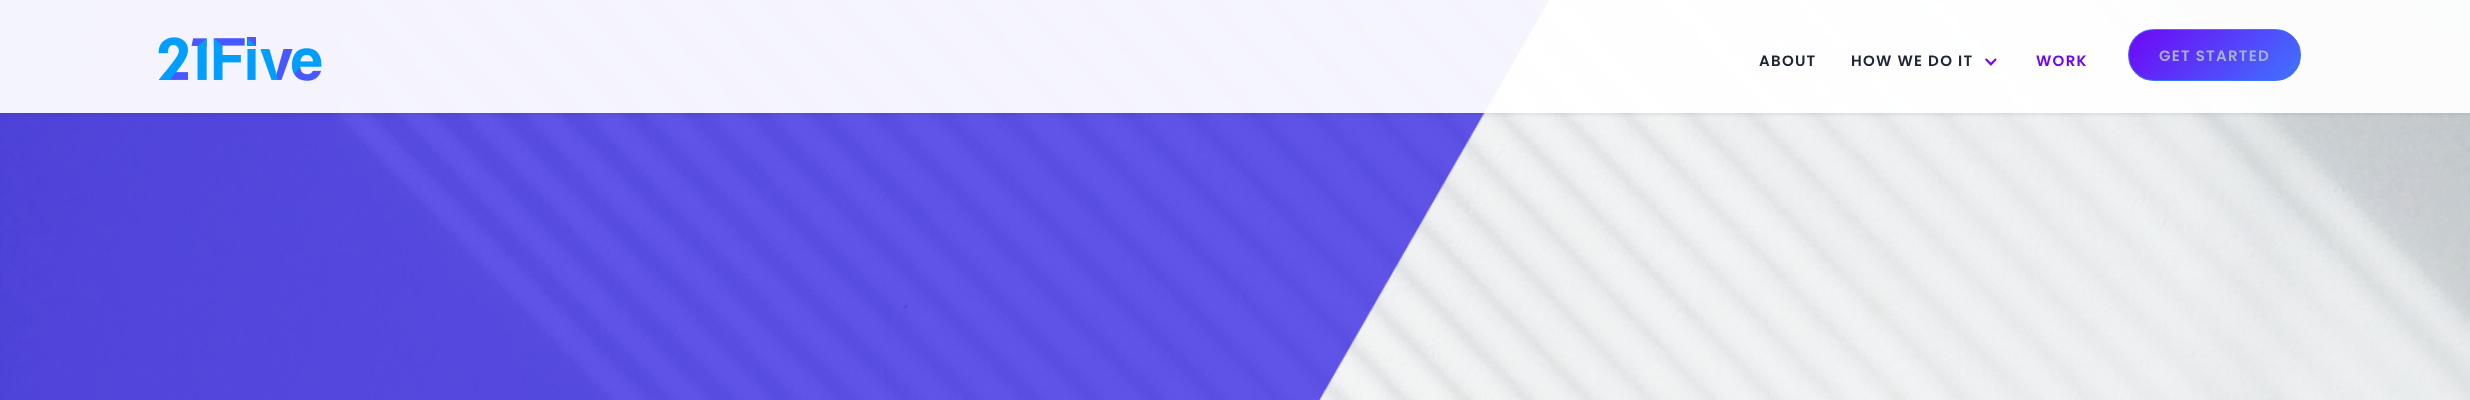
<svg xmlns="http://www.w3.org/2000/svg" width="2470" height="400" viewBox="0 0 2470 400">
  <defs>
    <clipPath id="clip1"><path d="M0 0H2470V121H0ZM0 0H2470V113H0Z" clip-rule="evenodd"/></clipPath>
    <clipPath id="clip2"><rect x="2128" y="29" width="173" height="52" rx="26"/></clipPath>
    <linearGradient id="g1" gradientUnits="userSpaceOnUse" x1="2159" y1="-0.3" x2="2270" y2="110"><stop offset="0" stop-color="rgb(111,6,245)"/><stop offset="1" stop-color="rgb(63,116,255)"/></linearGradient>
  </defs>
  <rect width="100%" height="100%" fill="rgb(255,255,255)"/>
  <image x="0" y="0" width="2470" height="400" href="pic1.png"/>
  <g clip-path="url(#clip1)">
    <rect x="1" y="1" width="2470" height="113" fill="rgba(0,0,0,0.1)" filter="blur(2px)"/>
  </g>
  <rect x="0" y="0" width="2470" height="113" fill="rgba(255,255,255,0.94)"/>
  <image x="158" y="37" width="164" height="44" href="pic2.png"/>
  <g font-family="Poppins" font-size="15" font-weight="600" letter-spacing="1.25" fill="rgb(31,37,50)">
    <text x="1759" y="66">ABOUT</text>
    <text x="1851" y="66">HOW WE DO IT</text>
  </g>
  <image x="1985" y="58" width="12" height="8" href="pic3.png"/>
  <text x="2036" y="66" font-family="Poppins" font-size="15" font-weight="600" letter-spacing="1.25" fill="rgb(111,6,245)">WORK</text>
  <g clip-path="url(#clip2)">
    <rect x="2129" y="30" width="171" height="50" fill="url(#g1)"/>
  </g>
  <rect x="2128.5" y="29.5" width="172" height="51" rx="25.5" fill="none" stroke="rgb(63,116,255)"/>
  <text x="2159" y="61" font-family="Poppins" font-size="15" font-weight="600" letter-spacing="1.25" fill="rgb(164,177,204)">GET STARTED</text>
</svg>
